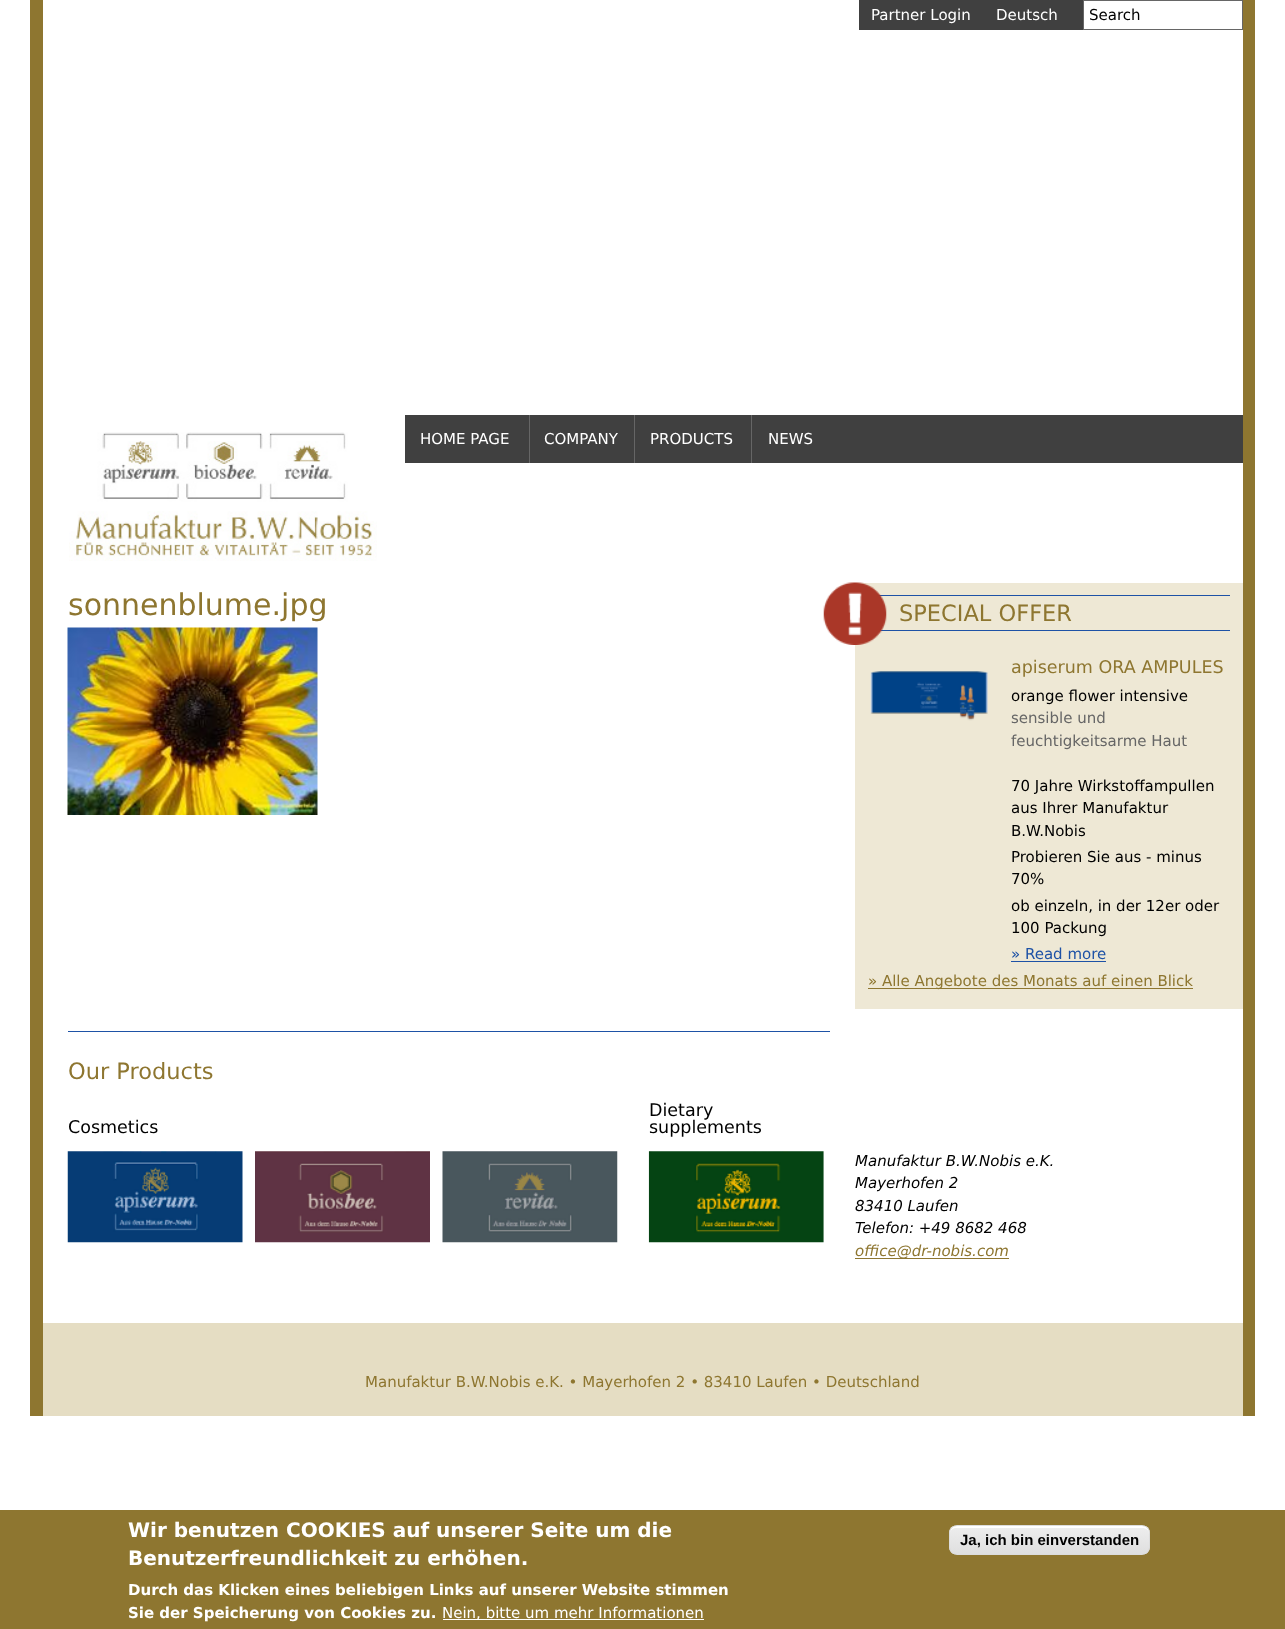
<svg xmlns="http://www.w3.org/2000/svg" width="1285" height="1629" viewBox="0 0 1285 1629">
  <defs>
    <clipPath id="clip1"><rect x="949" y="1525" width="201" height="30" rx="8"/></clipPath>
    <linearGradient id="g1" gradientUnits="userSpaceOnUse" x1="1049" y1="1526" x2="1049" y2="1554"><stop offset="0.05" stop-color="rgb(237,237,237)"/><stop offset="1" stop-color="rgb(223,223,223)"/></linearGradient>
  </defs>
  <rect width="100%" height="100%" fill="rgb(255,255,255)"/>
  <rect x="1243" y="0" width="12" height="1416" fill="rgb(142,118,48)"/>
  <rect x="30" y="0" width="13" height="1416" fill="rgb(142,118,48)"/>
  <rect x="859" y="0" width="224" height="30" fill="rgb(64,64,64)"/>
  <g font-family="DejaVu Sans" font-size="15" fill="rgb(255,255,255)">
    <text x="871" y="20">Partner Login</text>
    <text x="996" y="20">Deutsch</text>
  </g>
  <rect x="1083.5" y="0.5" width="159" height="29" fill="none" stroke="rgb(102,102,102)"/>
  <text x="1089" y="20" font-family="DejaVu Sans" font-size="15" fill="rgb(0,0,0)">Search</text>
  <image x="69" y="432" width="308" height="129" href="pic1.png"/>
  <rect x="405" y="415" width="838" height="48" fill="rgb(64,64,64)"/>
  <text x="420" y="444" font-family="DejaVu Sans" font-size="15" fill="rgb(255,255,255)">HOME PAGE</text>
  <rect x="529" y="415" width="1" height="48" fill="rgb(102,102,102)"/>
  <text x="544" y="444" font-family="DejaVu Sans" font-size="15" fill="rgb(255,255,255)">COMPANY</text>
  <rect x="634" y="415" width="1" height="48" fill="rgb(102,102,102)"/>
  <text x="650" y="444" font-family="DejaVu Sans" font-size="15" fill="rgb(255,255,255)">PRODUCTS</text>
  <rect x="751" y="415" width="1" height="48" fill="rgb(102,102,102)"/>
  <text x="768" y="444" font-family="DejaVu Sans" font-size="15" fill="rgb(255,255,255)">NEWS</text>
  <text x="68" y="615" font-family="DejaVu Sans" font-size="30" fill="rgb(142,118,48)">sonnenblume.jpg</text>
  <image x="67" y="627" width="251" height="188" href="pic2.png"/>
  <rect x="855" y="583" width="388" height="426" fill="rgb(238,232,213)"/>
  <rect x="878" y="595" width="352" height="1" fill="rgb(30,82,166)"/>
  <rect x="880" y="630" width="350" height="1" fill="rgb(30,82,166)"/>
  <image x="823" y="582" width="64" height="63" href="pic3.png"/>
  <text x="899" y="621" font-family="DejaVu Sans" font-size="22.5" fill="rgb(142,118,48)">SPECIAL OFFER</text>
  <image x="870" y="671" width="118" height="50" href="pic4.png"/>
  <text x="1011" y="673" font-family="DejaVu Sans" font-size="17.5" fill="rgb(142,118,48)">apiserum ORA AMPULES</text>
  <text x="1011" y="701" font-family="DejaVu Sans" font-size="15" fill="rgb(0,0,0)">orange flower intensive</text>
  <g font-family="DejaVu Sans" font-size="15" fill="rgb(102,102,102)">
    <text>
      <tspan x="1011" y="723">sensible und</tspan>
      <tspan x="1011" y="746">feuchtigkeitsarme Haut</tspan>
    </text>
  </g>
  <g font-family="DejaVu Sans" font-size="15" fill="rgb(0,0,0)">
    <text>
      <tspan x="1011" y="791">70 Jahre Wirkstoffampullen</tspan>
      <tspan x="1011" y="813">aus Ihrer Manufaktur</tspan>
      <tspan x="1011" y="836">B.W.Nobis</tspan>
      <tspan x="1011" y="862">Probieren Sie aus - minus</tspan>
      <tspan x="1011" y="884">70%</tspan>
      <tspan x="1011" y="911">ob einzeln, in der 12er oder</tspan>
      <tspan x="1011" y="933">100 Packung</tspan>
    </text>
  </g>
  <text x="1011" y="959" font-family="DejaVu Sans" font-size="15" fill="rgb(30,82,166)">» Read more</text>
  <rect x="1011" y="961" width="95" height="1" fill="rgb(30,82,166)"/>
  <rect x="868" y="988" width="325" height="1" fill="rgb(142,118,48)"/>
  <text x="868" y="986" font-family="DejaVu Sans" font-size="15" fill="rgb(142,118,48)">» Alle Angebote des Monats auf einen Blick</text>
  <rect x="68" y="1031" width="762" height="1" fill="rgb(30,82,166)"/>
  <text x="68" y="1079" font-family="DejaVu Sans" font-size="22.5" fill="rgb(142,118,48)">Our Products</text>
  <text x="68" y="1133" font-family="DejaVu Sans" font-size="17.5" fill="rgb(0,0,0)">Cosmetics</text>
  <image x="67" y="1151" width="176" height="92" href="pic5.png"/>
  <image x="255" y="1151" width="175" height="92" href="pic6.png"/>
  <image x="442" y="1151" width="176" height="92" href="pic7.png"/>
  <g font-family="DejaVu Sans" font-size="17.5" fill="rgb(0,0,0)">
    <text>
      <tspan x="649" y="1116">Dietary</tspan>
      <tspan x="649" y="1133">supplements</tspan>
    </text>
  </g>
  <image x="648" y="1151" width="176" height="92" href="pic8.png"/>
  <g font-family="DejaVu Sans" font-size="15" font-style="italic" fill="rgb(0,0,0)">
    <text>
      <tspan x="855" y="1166">Manufaktur B.W.Nobis e.K.</tspan>
      <tspan x="855" y="1188">Mayerhofen 2</tspan>
      <tspan x="855" y="1211">83410 Laufen</tspan>
      <tspan x="855" y="1233">Telefon: +49 8682 468</tspan>
    </text>
  </g>
  <rect x="855" y="1258" width="154" height="1" fill="rgb(142,118,48)"/>
  <text x="855" y="1256" font-family="DejaVu Sans" font-size="15" font-style="italic" fill="rgb(142,118,48)">office@dr-nobis.com</text>
  <rect x="43" y="1323" width="1200" height="93" fill="rgb(229,221,195)"/>
  <text x="365" y="1387" font-family="DejaVu Sans" font-size="15" fill="rgb(142,118,48)">Manufaktur B.W.Nobis e.K. • Mayerhofen 2 • 83410 Laufen • Deutschland</text>
  <rect x="0" y="1510" width="1285" height="119" fill="rgb(142,118,48)"/>
  <g font-family="DejaVu Sans" font-size="20" font-weight="bold" fill="rgb(255,255,255)">
    <text>
      <tspan x="128" y="1537">Wir benutzen COOKIES auf unserer Seite um die</tspan>
      <tspan x="128" y="1565">Benutzerfreundlichkeit zu erhöhen.</tspan>
    </text>
  </g>
  <g font-family="DejaVu Sans" font-size="15" font-weight="bold" fill="rgb(255,255,255)">
    <text>
      <tspan x="128" y="1595">Durch das Klicken eines beliebigen Links auf unserer Website stimmen</tspan>
      <tspan x="128" y="1618">Sie der Speicherung von Cookies zu.</tspan>
    </text>
  </g>
  <rect x="443" y="1619" width="261" height="1" fill="rgb(255,255,255)"/>
  <text x="442" y="1618" font-family="DejaVu Sans" font-size="15" fill="rgb(255,255,255)">Nein, bitte um mehr Informationen</text>
  <g clip-path="url(#clip1)">
    <rect x="949" y="1526" width="201" height="28" fill="url(#g1)"/>
  </g>
  <path d="M956 1528H1142C1146 1528 1149 1530 1149 1534V1532C1149 1529 1146 1526 1143 1526H956C953 1526 950 1529 950 1532V1534C950 1530 953 1528 956 1528Z" fill="rgb(255,255,255)"/>
  <rect x="949.5" y="1525.5" width="200" height="29" rx="7.5" fill="none" stroke="rgb(220,220,220)"/>
  <text x="960" y="1545" font-family="Liberation Sans" font-size="15" font-weight="bold" fill="rgb(0,0,0)">Ja, ich bin einverstanden</text>
</svg>
